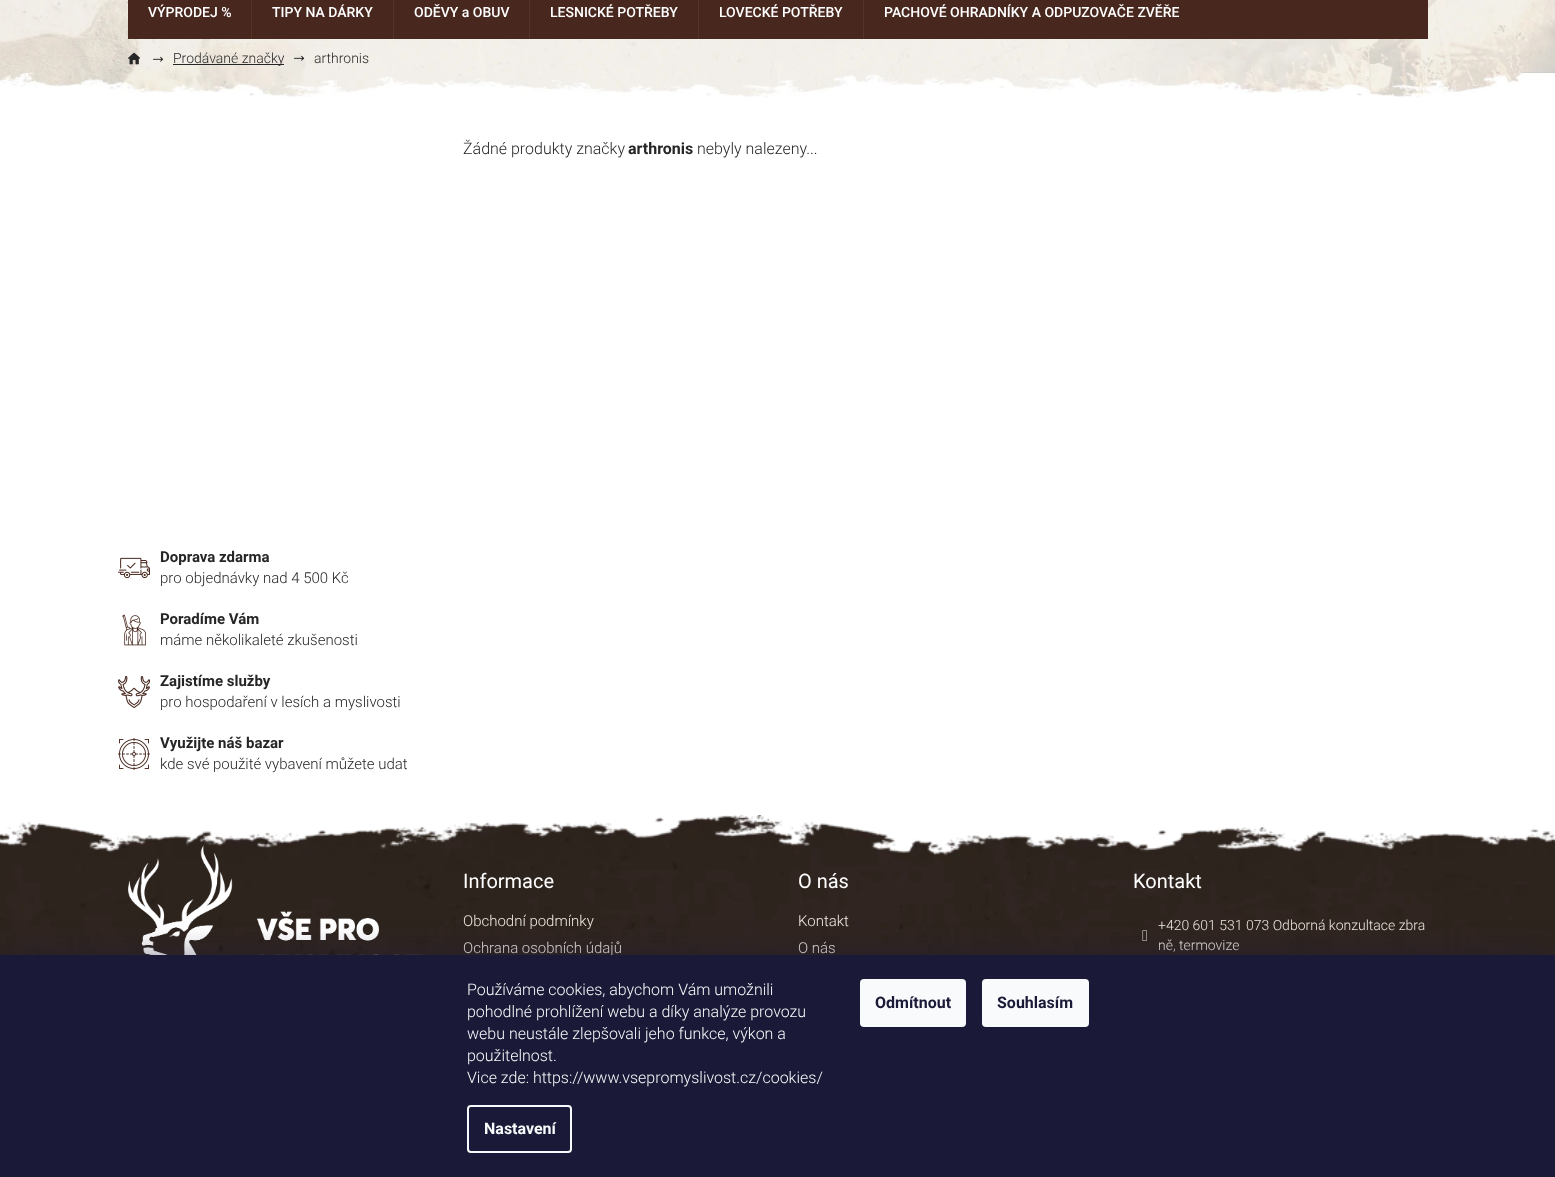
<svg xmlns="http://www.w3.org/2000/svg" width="1555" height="1177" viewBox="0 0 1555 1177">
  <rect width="100%" height="100%" fill="rgb(255,255,255)"/>
  <image x="0" y="0" width="1555" height="98" href="pic1.png"/>
  <rect x="128" y="0" width="1300" height="39" fill="rgb(72,40,30)"/>
  <text x="148" y="17" font-family="Roboto" font-size="14" font-weight="500" fill="rgb(255,255,255)">VÝPRODEJ %</text>
  <rect x="251" y="0" width="1" height="39" fill="rgb(88,51,40)"/>
  <text x="272" y="17" font-family="Roboto" font-size="14" font-weight="500" fill="rgb(255,255,255)">TIPY NA DÁRKY</text>
  <rect x="393" y="0" width="1" height="39" fill="rgb(88,51,40)"/>
  <text x="414" y="17" font-family="Roboto" font-size="14" font-weight="500" fill="rgb(255,255,255)">ODĚVY a OBUV</text>
  <rect x="529" y="0" width="1" height="39" fill="rgb(88,51,40)"/>
  <text x="550" y="17" font-family="Roboto" font-size="14" font-weight="500" fill="rgb(255,255,255)">LESNICKÉ POTŘEBY</text>
  <rect x="698" y="0" width="1" height="39" fill="rgb(88,51,40)"/>
  <text x="719" y="17" font-family="Roboto" font-size="14" font-weight="500" fill="rgb(255,255,255)">LOVECKÉ POTŘEBY</text>
  <rect x="863" y="0" width="1" height="39" fill="rgb(88,51,40)"/>
  <text x="884" y="17" font-family="Roboto" font-size="14" font-weight="500" fill="rgb(255,255,255)">PACHOVÉ OHRADNÍKY A ODPUZOVAČE ZVĚŘE</text>
  <image x="128" y="52" width="12" height="13" href="pic2.png"/>
  <image x="153" y="56" width="10" height="6" href="pic3.png"/>
  <rect x="173" y="64" width="111" height="1" fill="rgb(38,38,38)"/>
  <text x="173" y="63" font-family="Roboto" font-size="14" font-weight="300" fill="rgb(38,38,38)">Prodávané značky</text>
  <image x="294" y="55" width="10" height="6" href="pic4.png"/>
  <text x="314" y="63" font-family="Roboto" font-size="14" font-weight="300" fill="rgb(38,38,38)">arthronis</text>
  <text x="463" y="154" font-family="Roboto" font-size="16" font-weight="300" fill="rgb(38,38,38)">Žádné produkty značky</text>
  <text x="628" y="154" font-family="Roboto" font-size="16" font-weight="bold" fill="rgb(38,38,38)">arthronis</text>
  <text x="697" y="154" font-family="Roboto" font-size="16" font-weight="300" fill="rgb(38,38,38)">nebyly nalezeny...</text>
  <image x="118" y="557" width="32" height="22" href="pic5.png"/>
  <text x="160" y="562" font-family="Roboto" font-size="15" font-weight="bold" fill="rgb(38,38,38)">Doprava zdarma</text>
  <text x="160" y="583" font-family="Roboto" font-size="15" font-weight="300" fill="rgb(38,38,38)">pro objednávky nad 4 500 Kč</text>
  <image x="122" y="614" width="24" height="32" href="pic6.png"/>
  <text x="160" y="624" font-family="Roboto" font-size="15" font-weight="bold" fill="rgb(38,38,38)">Poradíme Vám</text>
  <text x="160" y="645" font-family="Roboto" font-size="15" font-weight="300" fill="rgb(38,38,38)">máme několikaleté zkušenosti</text>
  <image x="118" y="676" width="32" height="32" href="pic7.png"/>
  <text x="160" y="686" font-family="Roboto" font-size="15" font-weight="bold" fill="rgb(38,38,38)">Zajistíme služby</text>
  <text x="160" y="707" font-family="Roboto" font-size="15" font-weight="300" fill="rgb(38,38,38)">pro hospodaření v lesích a myslivosti</text>
  <image x="118" y="738" width="32" height="32" href="pic8.png"/>
  <text x="160" y="748" font-family="Roboto" font-size="15" font-weight="bold" fill="rgb(38,38,38)">Využijte náš bazar</text>
  <text x="160" y="769" font-family="Roboto" font-size="15" font-weight="300" fill="rgb(38,38,38)">kde své použité vybavení můžete udat</text>
  <image x="0" y="815" width="1555" height="140" href="pic9.png"/>
  <image x="128" y="845" width="294" height="110" href="pic10.png"/>
  <text x="463" y="888" font-family="Roboto" font-size="20" fill="rgb(255,255,255)">Informace</text>
  <g font-family="Roboto" font-size="15" font-weight="300" fill="rgb(239,235,227)">
    <text>
      <tspan x="463" y="926">Obchodní podmínky</tspan>
      <tspan x="463" y="953">Ochrana osobních údajů</tspan>
    </text>
  </g>
  <text x="798" y="888" font-family="Roboto" font-size="20" fill="rgb(255,255,255)">O nás</text>
  <g font-family="Roboto" font-size="15" font-weight="300" fill="rgb(239,235,227)">
    <text>
      <tspan x="798" y="926">Kontakt</tspan>
      <tspan x="798" y="953">O nás</tspan>
    </text>
  </g>
  <text x="1133" y="888" font-family="Roboto" font-size="20" fill="rgb(255,255,255)">Kontakt</text>
  <text x="1158" y="930" font-family="Roboto" font-size="14" font-weight="300" fill="rgb(239,235,227)">+420 601 531 073 Odborná konzultace zbra</text>
  <image x="1142" y="930" width="5" height="11" href="pic11.png"/>
  <text x="1158" y="950" font-family="Roboto" font-size="14" font-weight="300" fill="rgb(239,235,227)">ně, termovize</text>
  <rect x="0" y="955" width="1555" height="222" fill="rgba(27,25,57,0.5)" filter="blur(15px)"/>
  <rect x="0" y="955" width="1555" height="222" fill="rgb(26,25,55)"/>
  <g font-family="Roboto" font-size="16" font-weight="300" fill="rgb(248,250,251)">
    <text>
      <tspan x="467" y="995">Používáme cookies, abychom Vám umožnili</tspan>
      <tspan x="467" y="1017">pohodlné prohlížení webu a díky analýze provozu</tspan>
      <tspan x="467" y="1039">webu neustále zlepšovali jeho funkce, výkon a</tspan>
      <tspan x="467" y="1061">použitelnost.</tspan>
      <tspan x="467" y="1083">Vice zde: https://www.vsepromyslivost.cz/cookies/</tspan>
    </text>
  </g>
  <rect x="468" y="1106" width="103" height="46" rx="3" fill="none" stroke="rgb(248,250,251)" stroke-width="2"/>
  <text x="484" y="1134" font-family="Roboto" font-size="16" font-weight="bold" fill="rgb(248,250,251)">Nastavení</text>
  <rect x="860" y="979" width="106" height="48" rx="4" fill="rgb(248,250,251)"/>
  <text x="875" y="1008" font-family="Roboto" font-size="16" font-weight="bold" fill="rgb(26,25,55)">Odmítnout</text>
  <rect x="982" y="979" width="107" height="48" rx="4" fill="rgb(248,250,251)"/>
  <text x="997" y="1008" font-family="Roboto" font-size="16" font-weight="bold" fill="rgb(26,25,55)">Souhlasím</text>
</svg>
